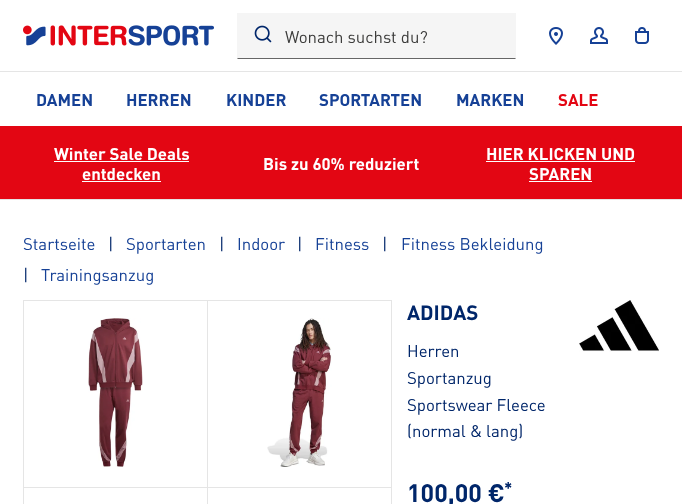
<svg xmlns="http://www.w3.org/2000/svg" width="682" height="504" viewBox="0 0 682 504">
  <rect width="100%" height="100%" fill="rgb(255,255,255)"/>
  <rect x="0" y="199" width="682" height="1" fill="rgb(229,229,229)"/>
  <image x="23" y="25" width="191" height="21" href="pic1.png"/>
  <rect x="237" y="13" width="279" height="46" fill="rgb(245,245,245)"/>
  <path d="M516 59H237L238 58H515Z" fill="rgb(102,102,102)"/>
  <image x="254" y="25" width="18" height="18" href="pic2.png"/>
  <text x="285" y="43" font-family="DIN" font-size="16.75" fill="rgb(60,60,59)">Wonach suchst du?</text>
  <image x="549" y="27" width="14" height="18" href="pic3.png"/>
  <image x="590" y="27" width="18" height="17" href="pic4.png"/>
  <image x="635" y="27" width="14" height="17" href="pic5.png"/>
  <rect x="0" y="71" width="682" height="1" fill="rgb(229,229,229)"/>
  <g font-family="DIN" font-size="16.75" font-weight="bold" fill="rgb(22,65,150)">
    <text x="36" y="106">DAMEN</text>
    <text x="126" y="106">HERREN</text>
    <text x="226" y="106">KINDER</text>
    <text x="319" y="106">SPORTARTEN</text>
    <text x="456" y="106">MARKEN</text>
  </g>
  <text x="558" y="106" font-family="DIN" font-size="16.75" font-weight="bold" fill="rgb(227,6,19)">SALE</text>
  <rect x="0" y="126" width="682" height="73" fill="rgb(227,6,19)"/>
  <text x="54" y="160" font-family="DIN" font-size="16.75" font-weight="bold" fill="rgb(255,255,255)">Winter Sale Deals</text>
  <rect x="54" y="161" width="135" height="1" fill="rgb(255,255,255)"/>
  <text x="82" y="180" font-family="DIN" font-size="16.75" font-weight="bold" fill="rgb(255,255,255)">entdecken</text>
  <rect x="82" y="181" width="79" height="1" fill="rgb(255,255,255)"/>
  <g font-family="DIN" font-size="16.75" font-weight="bold" fill="rgb(255,255,255)">
    <text x="263" y="170">Bis zu 60% reduziert</text>
    <text x="486" y="160">HIER KLICKEN UND</text>
  </g>
  <rect x="486" y="161" width="149" height="1" fill="rgb(255,255,255)"/>
  <text x="529" y="180" font-family="DIN" font-size="16.75" font-weight="bold" fill="rgb(255,255,255)">SPAREN</text>
  <rect x="529" y="181" width="63" height="1" fill="rgb(255,255,255)"/>
  <text x="23" y="250" font-family="DIN" font-size="16.75" fill="rgb(22,65,150)">Startseite</text>
  <text x="108" y="250" font-family="DIN" font-size="16.75" fill="rgb(0,38,106)">|</text>
  <text x="126" y="250" font-family="DIN" font-size="16.75" fill="rgb(22,65,150)">Sportarten</text>
  <text x="219" y="250" font-family="DIN" font-size="16.75" fill="rgb(0,38,106)">|</text>
  <text x="237" y="250" font-family="DIN" font-size="16.75" fill="rgb(22,65,150)">Indoor</text>
  <text x="297" y="250" font-family="DIN" font-size="16.75" fill="rgb(0,38,106)">|</text>
  <text x="315" y="250" font-family="DIN" font-size="16.75" fill="rgb(22,65,150)">Fitness</text>
  <text x="382" y="250" font-family="DIN" font-size="16.75" fill="rgb(0,38,106)">|</text>
  <text x="401" y="250" font-family="DIN" font-size="16.75" fill="rgb(22,65,150)">Fitness Bekleidung</text>
  <text x="23" y="281" font-family="DIN" font-size="16.75" fill="rgb(0,38,106)">|</text>
  <text x="41" y="281" font-family="DIN" font-size="16.75" fill="rgb(22,65,150)">Trainingsanzug</text>
  <rect x="23.5" y="300.5" width="184" height="187" fill="none" stroke="rgb(229,229,229)"/>
  <image x="88" y="318" width="55" height="149" href="pic6.png"/>
  <rect x="207.5" y="300.5" width="184" height="187" fill="none" stroke="rgb(229,229,229)"/>
  <image x="267" y="318" width="65" height="149" href="pic7.png"/>
  <rect x="207" y="488" width="1" height="16" fill="rgb(229,229,229)"/>
  <rect x="23" y="488" width="1" height="16" fill="rgb(229,229,229)"/>
  <rect x="391" y="488" width="1" height="16" fill="rgb(229,229,229)"/>
  <text x="407" y="320" font-family="DIN" font-size="20.5" font-weight="bold" fill="rgb(0,38,106)">ADIDAS</text>
  <g font-family="DIN" font-size="16.75" fill="rgb(0,38,106)">
    <text>
      <tspan x="407" y="357">Herren</tspan>
      <tspan x="407" y="384">Sportanzug</tspan>
      <tspan x="407" y="411">Sportswear Fleece</tspan>
      <tspan x="407" y="437">(normal &amp; lang)</tspan>
    </text>
  </g>
  <image x="579" y="300" width="80" height="52" href="pic8.png"/>
  <text x="407" y="502" font-family="DIN" font-size="25" font-weight="bold" fill="rgb(0,38,106)">100,00 €</text>
  <text x="504" y="494" font-family="DIN" font-size="16.75" font-weight="bold" fill="rgb(0,38,106)">*</text>
</svg>
